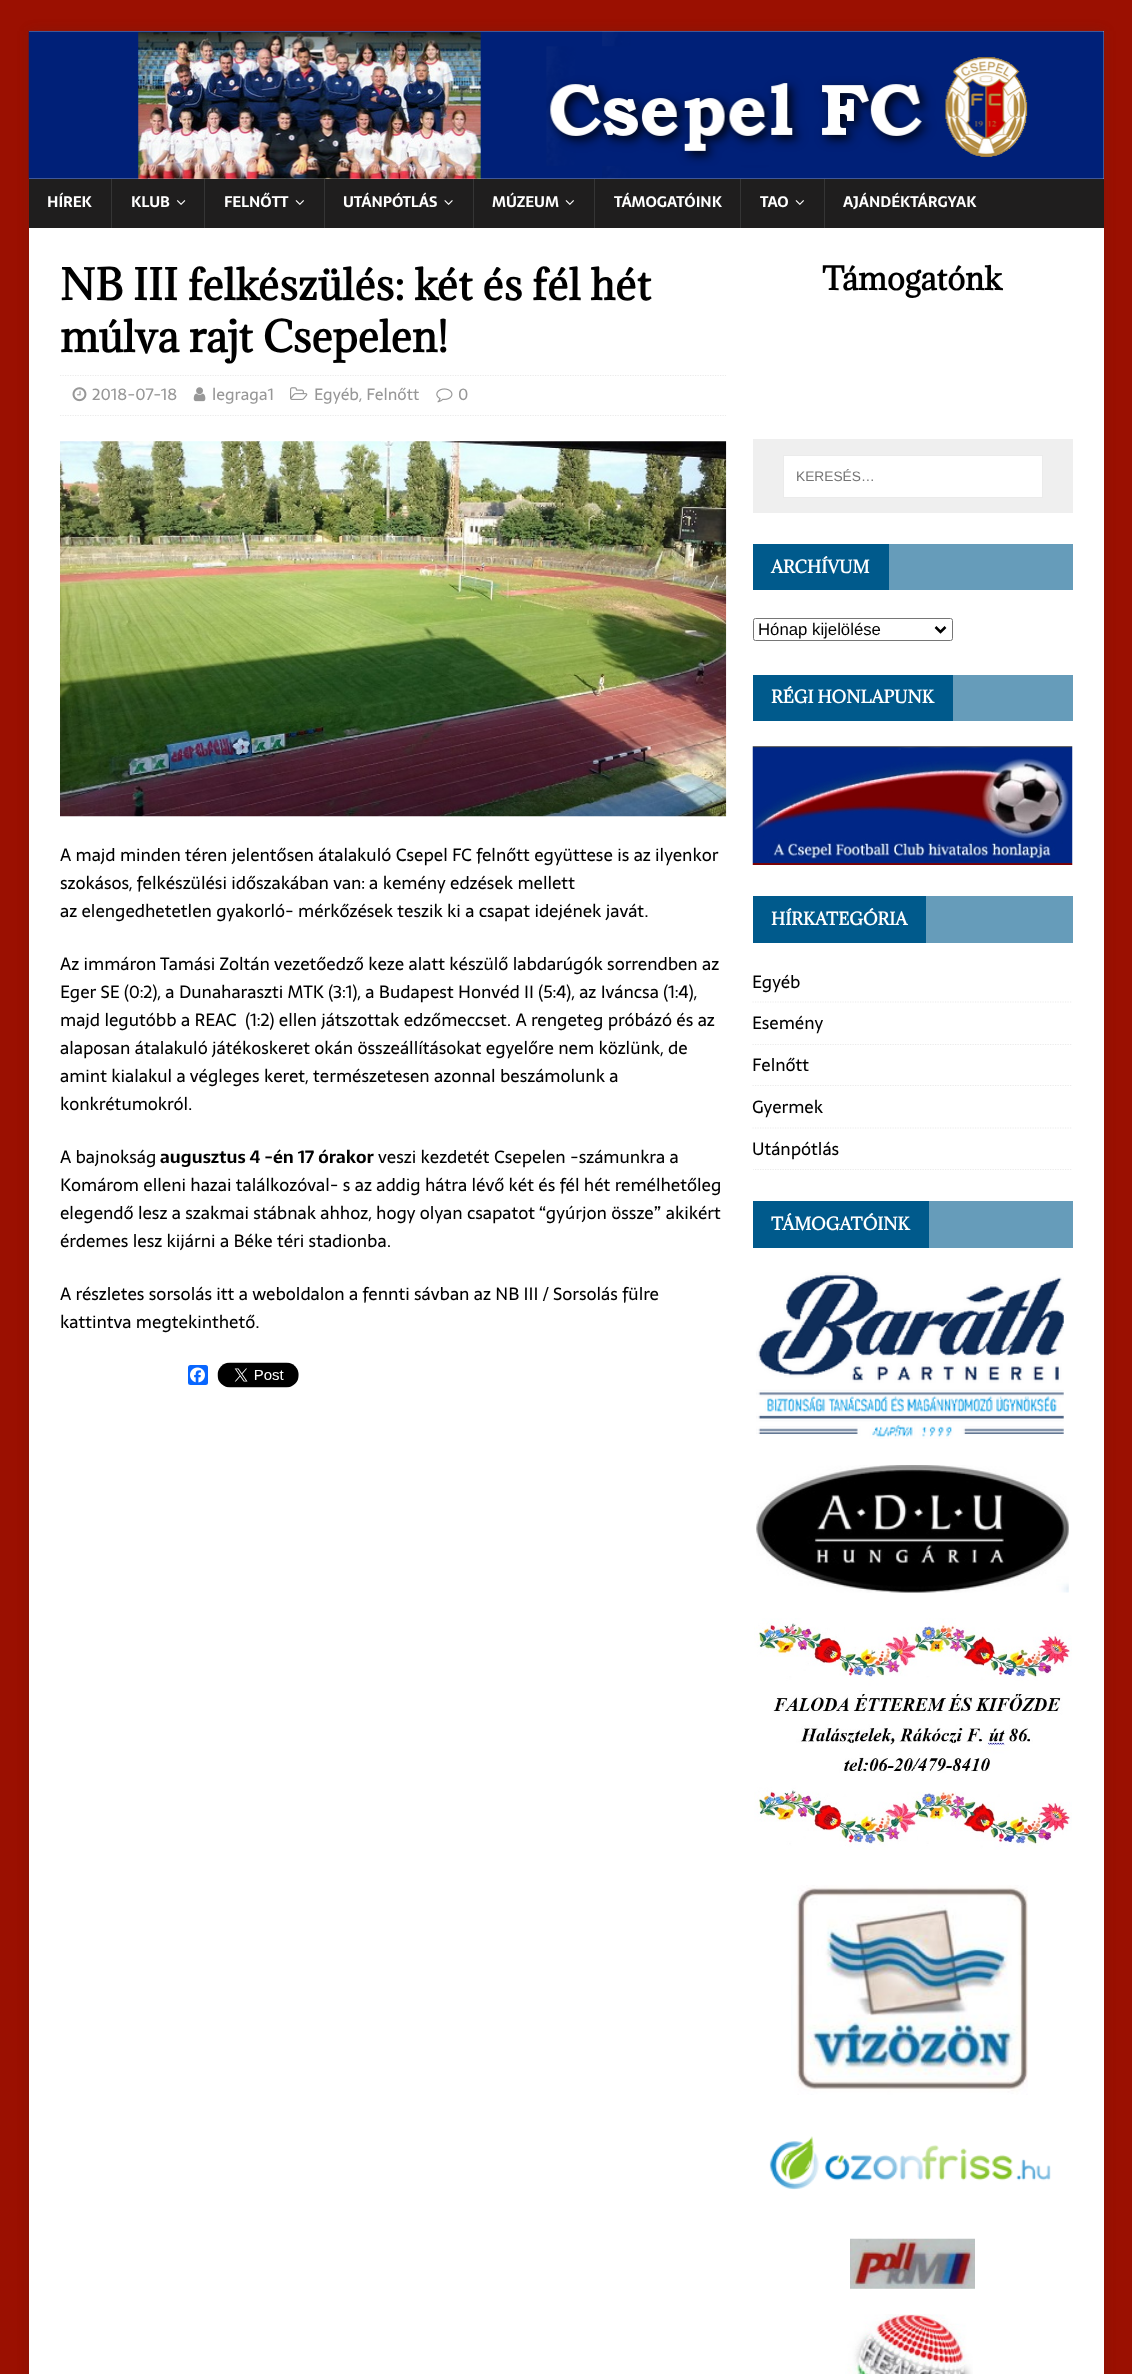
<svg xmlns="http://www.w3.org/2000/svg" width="1132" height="2374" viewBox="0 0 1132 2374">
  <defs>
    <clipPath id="clip1"><rect x="753" y="896" width="320" height="274"/></clipPath>
  </defs>
  <rect width="100%" height="100%" fill="rgb(155,16,1)"/>
  <rect x="29" y="31" width="1075" height="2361" fill="rgba(50,50,50,0.17)" filter="blur(6px)"/>
  <rect x="29" y="31" width="1075" height="148" fill="rgb(255,255,255)"/>
  <image x="28" y="31" width="1076" height="148" href="pic1.png"/>
  <rect x="29" y="179" width="1075" height="49" fill="rgb(31,30,30)"/>
  <text x="47" y="207" font-family="Sarala" font-size="15" font-weight="bold" fill="rgb(255,255,255)">HÍREK</text>
  <rect x="111" y="179" width="1" height="49" fill="rgb(53,53,53)"/>
  <text x="131" y="207" font-family="Sarala" font-size="15" font-weight="bold" fill="rgb(255,255,255)">KLUB</text>
  <image x="176" y="200" width="10" height="5" href="pic2.png"/>
  <rect x="204" y="179" width="1" height="49" fill="rgb(53,53,53)"/>
  <text x="224" y="207" font-family="Sarala" font-size="15" font-weight="bold" fill="rgb(255,255,255)">FELNŐTT</text>
  <image x="295" y="200" width="9" height="5" href="pic3.png"/>
  <rect x="324" y="179" width="1" height="49" fill="rgb(53,53,53)"/>
  <text x="343" y="207" font-family="Sarala" font-size="15" font-weight="bold" fill="rgb(255,255,255)">UTÁNPÓTLÁS</text>
  <image x="444" y="200" width="9" height="5" href="pic4.png"/>
  <rect x="473" y="179" width="1" height="49" fill="rgb(53,53,53)"/>
  <text x="492" y="207" font-family="Sarala" font-size="15" font-weight="bold" fill="rgb(255,255,255)">MÚZEUM</text>
  <image x="565" y="200" width="9" height="5" href="pic3.png"/>
  <rect x="594" y="179" width="1" height="49" fill="rgb(53,53,53)"/>
  <text x="614" y="207" font-family="Sarala" font-size="15" font-weight="bold" fill="rgb(255,255,255)">TÁMOGATÓINK</text>
  <rect x="740" y="179" width="1" height="49" fill="rgb(53,53,53)"/>
  <text x="760" y="207" font-family="Sarala" font-size="15" font-weight="bold" fill="rgb(255,255,255)">TAO</text>
  <image x="795" y="200" width="9" height="5" href="pic3.png"/>
  <rect x="824" y="179" width="1" height="49" fill="rgb(53,53,53)"/>
  <text x="843" y="207" font-family="Sarala" font-size="15" font-weight="bold" fill="rgb(255,255,255)">AJÁNDÉKTÁRGYAK</text>
  <rect x="29" y="228" width="1075" height="2146" fill="rgb(255,255,255)"/>
  <g font-family="Adamina" font-size="40" font-weight="bold" fill="rgb(0,0,0)">
    <text>
      <tspan x="60" y="300">NB III felkészülés: két és fél hét</tspan>
      <tspan x="60" y="352">múlva rajt Csepelen!</tspan>
    </text>
  </g>
  <path d="M60 375.5H726" fill="none" stroke="rgb(235,235,235)" stroke-width="1.2" stroke-dasharray="1.25 1.25"/>
  <path d="M60 415.5H726" fill="none" stroke="rgb(235,235,235)" stroke-width="1.2" stroke-dasharray="1.25 1.25"/>
  <image x="72" y="387" width="15" height="15" href="pic5.png"/>
  <text x="92" y="400" font-family="Sarala" font-size="16.25" fill="rgb(151,151,151)">2018-07-18</text>
  <image x="193" y="387" width="13" height="15" href="pic6.png"/>
  <text x="212" y="400" font-family="Sarala" font-size="16.25" fill="rgb(151,151,151)">legraga1</text>
  <image x="290" y="387" width="18" height="13" href="pic7.png"/>
  <text x="314" y="400" font-family="Sarala" font-size="16.25" fill="rgb(151,151,151)">Egyéb, Felnőtt</text>
  <image x="436" y="388" width="17" height="15" href="pic8.png"/>
  <text x="458" y="400" font-family="Sarala" font-size="16.25" fill="rgb(151,151,151)">0</text>
  <image x="60" y="441" width="667" height="376" href="pic9.png"/>
  <g font-family="Sarala" font-size="17.5" fill="rgb(0,0,0)">
    <text>
      <tspan x="60" y="861">A majd minden téren jelentősen átalakuló Csepel FC felnőtt együttese is az ilyenkor</tspan>
      <tspan x="60" y="889">szokásos, felkészülési időszakában van: a kemény edzések mellett</tspan>
      <tspan x="60" y="917">az elengedhetetlen gyakorló- mérkőzések teszik ki a csapat idejének javát.</tspan>
    </text>
    <text xml:space="preserve"><tspan x="60" y="970">Az immáron Tamási Zoltán vezetőedző keze alatt készülő labdarúgók sorrendben az</tspan><tspan x="60" y="998">Eger SE (0:2), a Dunaharaszti MTK (3:1), a Budapest Honvéd II (5:4), az Iváncsa (1:4),</tspan><tspan x="60" y="1026">majd legutóbb a REAC  (1:2) ellen játszottak edzőmeccset. A rengeteg próbázó és az</tspan><tspan x="60" y="1054">alaposan átalakuló játékoskeret okán összeállításokat egyelőre nem közlünk, de</tspan><tspan x="60" y="1082">amint kialakul a végleges keret, természetesen azonnal beszámolunk a</tspan><tspan x="60" y="1110">konkrétumokról.</tspan></text>
    <text x="60" y="1163">A bajnokság</text>
  </g>
  <text x="160" y="1163" font-family="Sarala" font-size="17.5" font-weight="bold" fill="rgb(0,0,0)">augusztus 4 -én 17 órakor</text>
  <g font-family="Sarala" font-size="17.5" fill="rgb(0,0,0)">
    <text x="378" y="1163">veszi kezdetét Csepelen -számunkra a</text>
    <text>
      <tspan x="60" y="1191">Komárom elleni hazai találkozóval- s az addig hátra lévő két és fél hét remélhetőleg</tspan>
      <tspan x="60" y="1219">elegendő lesz a szakmai stábnak ahhoz, hogy olyan csapatot “gyúrjon össze” akikért</tspan>
      <tspan x="60" y="1247">érdemes lesz kijárni a Béke téri stadionba.</tspan>
    </text>
    <text>
      <tspan x="60" y="1300">A részletes sorsolás itt a weboldalon a fennti sávban az NB III / Sorsolás fülre</tspan>
      <tspan x="60" y="1328">kattintva megtekinthető.</tspan>
    </text>
  </g>
  <rect x="188" y="1365" width="20" height="20" rx="2.5" fill="rgb(8,102,255)"/>
  <image x="190" y="1367" width="15" height="16" href="pic10.png"/>
  <image x="217" y="1362" width="82" height="26" href="pic11.png"/>
  <text x="822" y="290" font-family="Adamina" font-size="30" font-weight="bold" fill="rgb(0,0,0)">Támogatónk</text>
  <rect x="753" y="439" width="320" height="74" fill="rgb(239,239,239)"/>
  <rect x="783.5" y="455.5" width="259" height="42" fill="rgb(255,255,255)" stroke="rgb(235,235,235)"/>
  <text x="796" y="481" font-family="Liberation Sans" font-size="13.75" fill="rgb(117,117,117)">KERESÉS…</text>
  <rect x="889" y="544" width="184" height="46" fill="rgb(102,156,186)"/>
  <rect x="753" y="544" width="136" height="46" fill="rgb(0,90,140)"/>
  <text x="771" y="573" font-family="Adamina" font-size="16.25" font-weight="bold" fill="rgb(255,255,255)">ARCHÍVUM</text>
  <rect x="753.5" y="618.5" width="199" height="22" rx="2" fill="none" stroke="rgb(118,118,118)"/>
  <path d="M935.5 627L940.5 632L945.5 627" fill="none" stroke="rgb(0,0,0)" stroke-width="2.5"/>
  <text x="758" y="635" font-family="Liberation Sans" font-size="16.75" fill="rgb(0,0,0)">Hónap kijelölése</text>
  <rect x="953" y="675" width="120" height="46" fill="rgb(102,156,186)"/>
  <rect x="753" y="675" width="200" height="46" fill="rgb(0,90,140)"/>
  <text x="771" y="703" font-family="Adamina" font-size="16.25" font-weight="bold" fill="rgb(255,255,255)">RÉGI HONLAPUNK</text>
  <image x="752" y="746" width="321" height="119" href="pic12.png"/>
  <rect x="926" y="896" width="147" height="47" fill="rgb(102,156,186)"/>
  <rect x="753" y="896" width="173" height="47" fill="rgb(0,90,140)"/>
  <text x="771" y="925" font-family="Adamina" font-size="16.25" font-weight="bold" fill="rgb(255,255,255)">HÍRKATEGÓRIA</text>
  <path d="M752.5 1002H1072.5" fill="none" stroke="rgb(235,235,235)" stroke-width="1.2" stroke-dasharray="1.25 1.25"/>
  <text x="752" y="988" font-family="Sarala" font-size="17.5" fill="rgb(0,0,0)">Egyéb</text>
  <path d="M752.5 1044.5H1072.5" fill="none" stroke="rgb(235,235,235)" stroke-width="1.2" stroke-dasharray="1.25 1.25"/>
  <text x="752" y="1029" font-family="Sarala" font-size="17.5" fill="rgb(0,0,0)">Esemény</text>
  <path d="M752.5 1085.5H1072.5" fill="none" stroke="rgb(235,235,235)" stroke-width="1.2" stroke-dasharray="1.25 1.25"/>
  <text x="752" y="1071" font-family="Sarala" font-size="17.5" fill="rgb(0,0,0)">Felnőtt</text>
  <path d="M752.5 1128H1072.5" fill="none" stroke="rgb(235,235,235)" stroke-width="1.2" stroke-dasharray="1.25 1.25"/>
  <text x="752" y="1113" font-family="Sarala" font-size="17.5" fill="rgb(0,0,0)">Gyermek</text>
  <g clip-path="url(#clip1)">
    <path d="M752.5 1169.5H1072.5" fill="none" stroke="rgb(235,235,235)" stroke-width="1.2" stroke-dasharray="1.25 1.25"/>
  </g>
  <text x="752" y="1155" font-family="Sarala" font-size="17.5" fill="rgb(0,0,0)">Utánpótlás</text>
  <rect x="929" y="1201" width="144" height="47" fill="rgb(102,156,186)"/>
  <rect x="753" y="1201" width="176" height="47" fill="rgb(0,90,140)"/>
  <text x="771" y="1230" font-family="Adamina" font-size="16.25" font-weight="bold" fill="rgb(255,255,255)">TÁMOGATÓINK</text>
  <image x="756" y="1272" width="308" height="167" href="pic13.png"/>
  <image x="756" y="1465" width="313" height="128" href="pic14.png"/>
  <image x="754" y="1618" width="318" height="232" href="pic15.png"/>
  <image x="791" y="1885" width="237" height="210" href="pic16.png"/>
  <image x="769" y="2136" width="282" height="54" href="pic17.png"/>
  <image x="850" y="2238" width="125" height="51" href="pic18.png"/>
  <image x="845" y="2314" width="128" height="60" href="pic19.png"/>
</svg>
